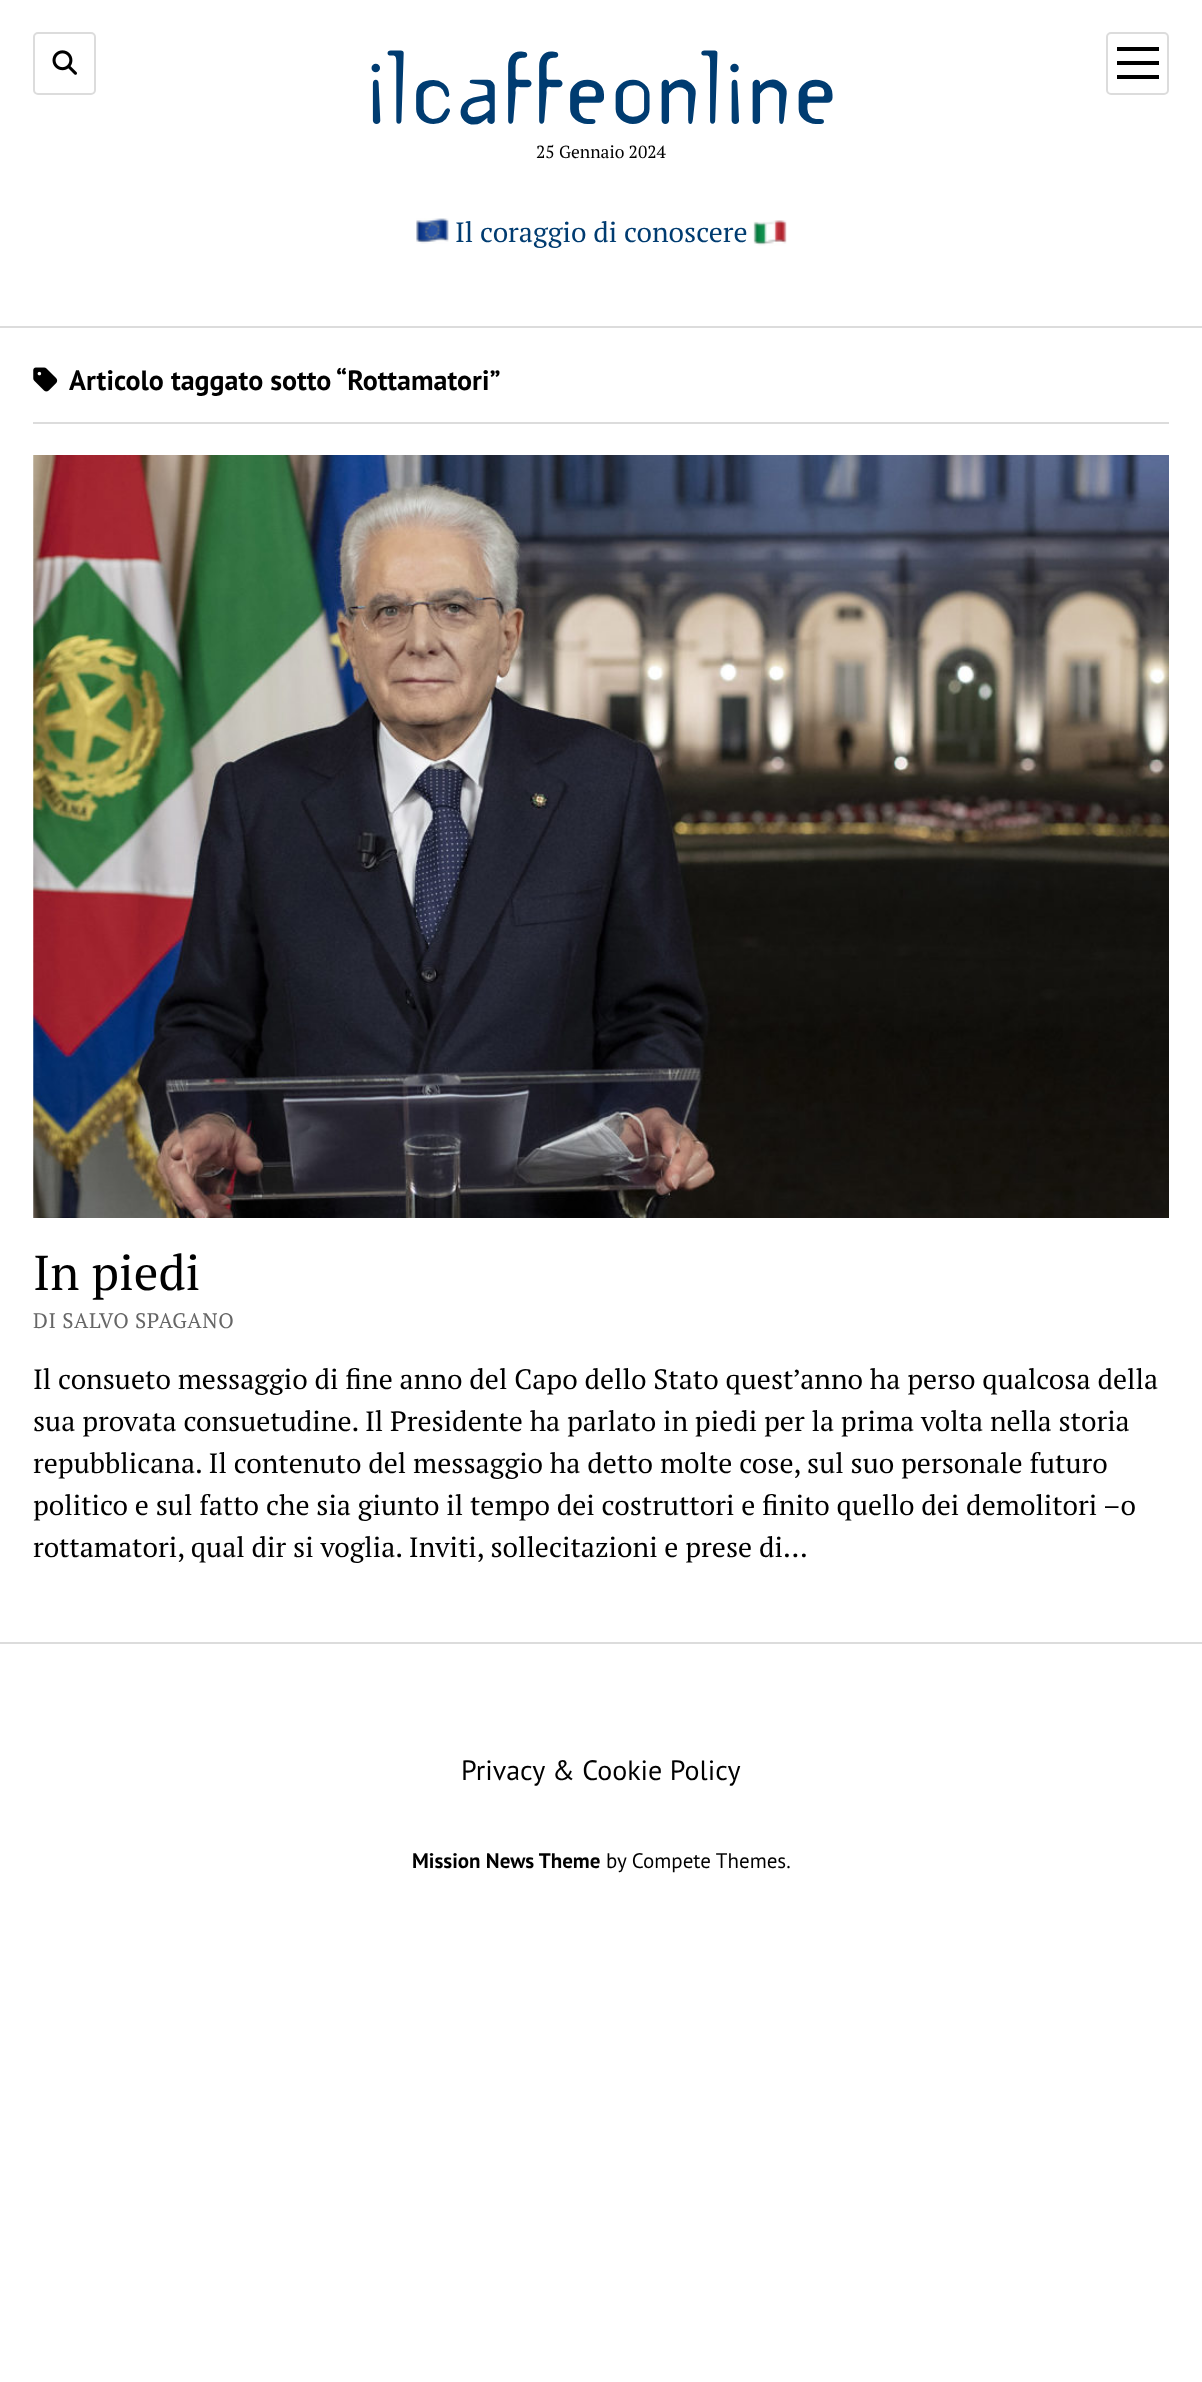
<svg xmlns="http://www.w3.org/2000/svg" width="1202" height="2382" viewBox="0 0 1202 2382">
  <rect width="100%" height="100%" fill="rgb(255,255,255)"/>
  <rect x="0" y="326" width="1202" height="2" fill="rgb(220,220,220)"/>
  <rect x="34" y="33" width="61" height="61" rx="4" fill="none" stroke="rgb(220,220,220)" stroke-width="2"/>
  <image x="52" y="50" width="25" height="25" href="pic1.png"/>
  <text x="365" y="124" font-family="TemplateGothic" font-size="92" fill="rgb(0,60,113)">ilcaffeonline</text>
  <text x="536" y="158" font-family="PT Serif" font-size="17.5" fill="rgb(0,0,0)">25 Gennaio 2024</text>
  <image x="416" y="218" width="33" height="26" href="pic2.png"/>
  <text x="455" y="242" font-family="PT Serif" font-size="28" fill="rgb(0,60,113)">Il coraggio di conoscere</text>
  <image x="753" y="220" width="34" height="26" href="pic3.png"/>
  <rect x="1107" y="33" width="61" height="61" rx="4" fill="none" stroke="rgb(220,220,220)" stroke-width="2"/>
  <rect x="1117" y="47" width="42" height="4" fill="rgb(0,0,0)"/>
  <rect x="1117" y="61" width="42" height="4" fill="rgb(0,0,0)"/>
  <rect x="1117" y="75" width="42" height="4" fill="rgb(0,0,0)"/>
  <rect x="33" y="422" width="1136" height="2" fill="rgb(220,220,220)"/>
  <image x="33" y="367" width="25" height="25" href="pic4.png"/>
  <text x="69" y="390" font-family="PT Sans" font-size="28" font-weight="bold" fill="rgb(0,0,0)">Articolo taggato sotto “Rottamatori”</text>
  <image x="33" y="455" width="1136" height="763" href="pic5.png"/>
  <text x="33" y="1290" font-family="PT Serif" font-size="49" fill="rgb(0,0,0)">In piedi</text>
  <text x="33" y="1328" font-family="PT Serif" font-size="21" letter-spacing="0.6" fill="rgb(102,102,102)">DI SALVO SPAGANO</text>
  <g font-family="PT Serif" font-size="28" fill="rgb(0,0,0)">
    <text>
      <tspan x="33" y="1389">Il consueto messaggio di fine anno del Capo dello Stato quest’anno ha perso qualcosa della</tspan>
      <tspan x="33" y="1431">sua provata consuetudine. Il Presidente ha parlato in piedi per la prima volta nella storia</tspan>
      <tspan x="33" y="1473">repubblicana. Il contenuto del messaggio ha detto molte cose, sul suo personale futuro</tspan>
      <tspan x="33" y="1515">politico e sul fatto che sia giunto il tempo dei costruttori e finito quello dei demolitori –o</tspan>
      <tspan x="33" y="1557">rottamatori, qual dir si voglia. Inviti, sollecitazioni e prese di…</tspan>
    </text>
  </g>
  <rect x="0" y="1642" width="1202" height="2" fill="rgb(220,220,220)"/>
  <text x="461" y="1780" font-family="PT Sans" font-size="28" fill="rgb(0,0,0)">Privacy &amp; Cookie Policy</text>
  <text x="412" y="1868" font-family="PT Sans" font-size="21" font-weight="bold" fill="rgb(0,0,0)">Mission News Theme</text>
  <text x="606" y="1868" font-family="PT Sans" font-size="21" fill="rgb(0,0,0)">by Compete Themes.</text>
</svg>
